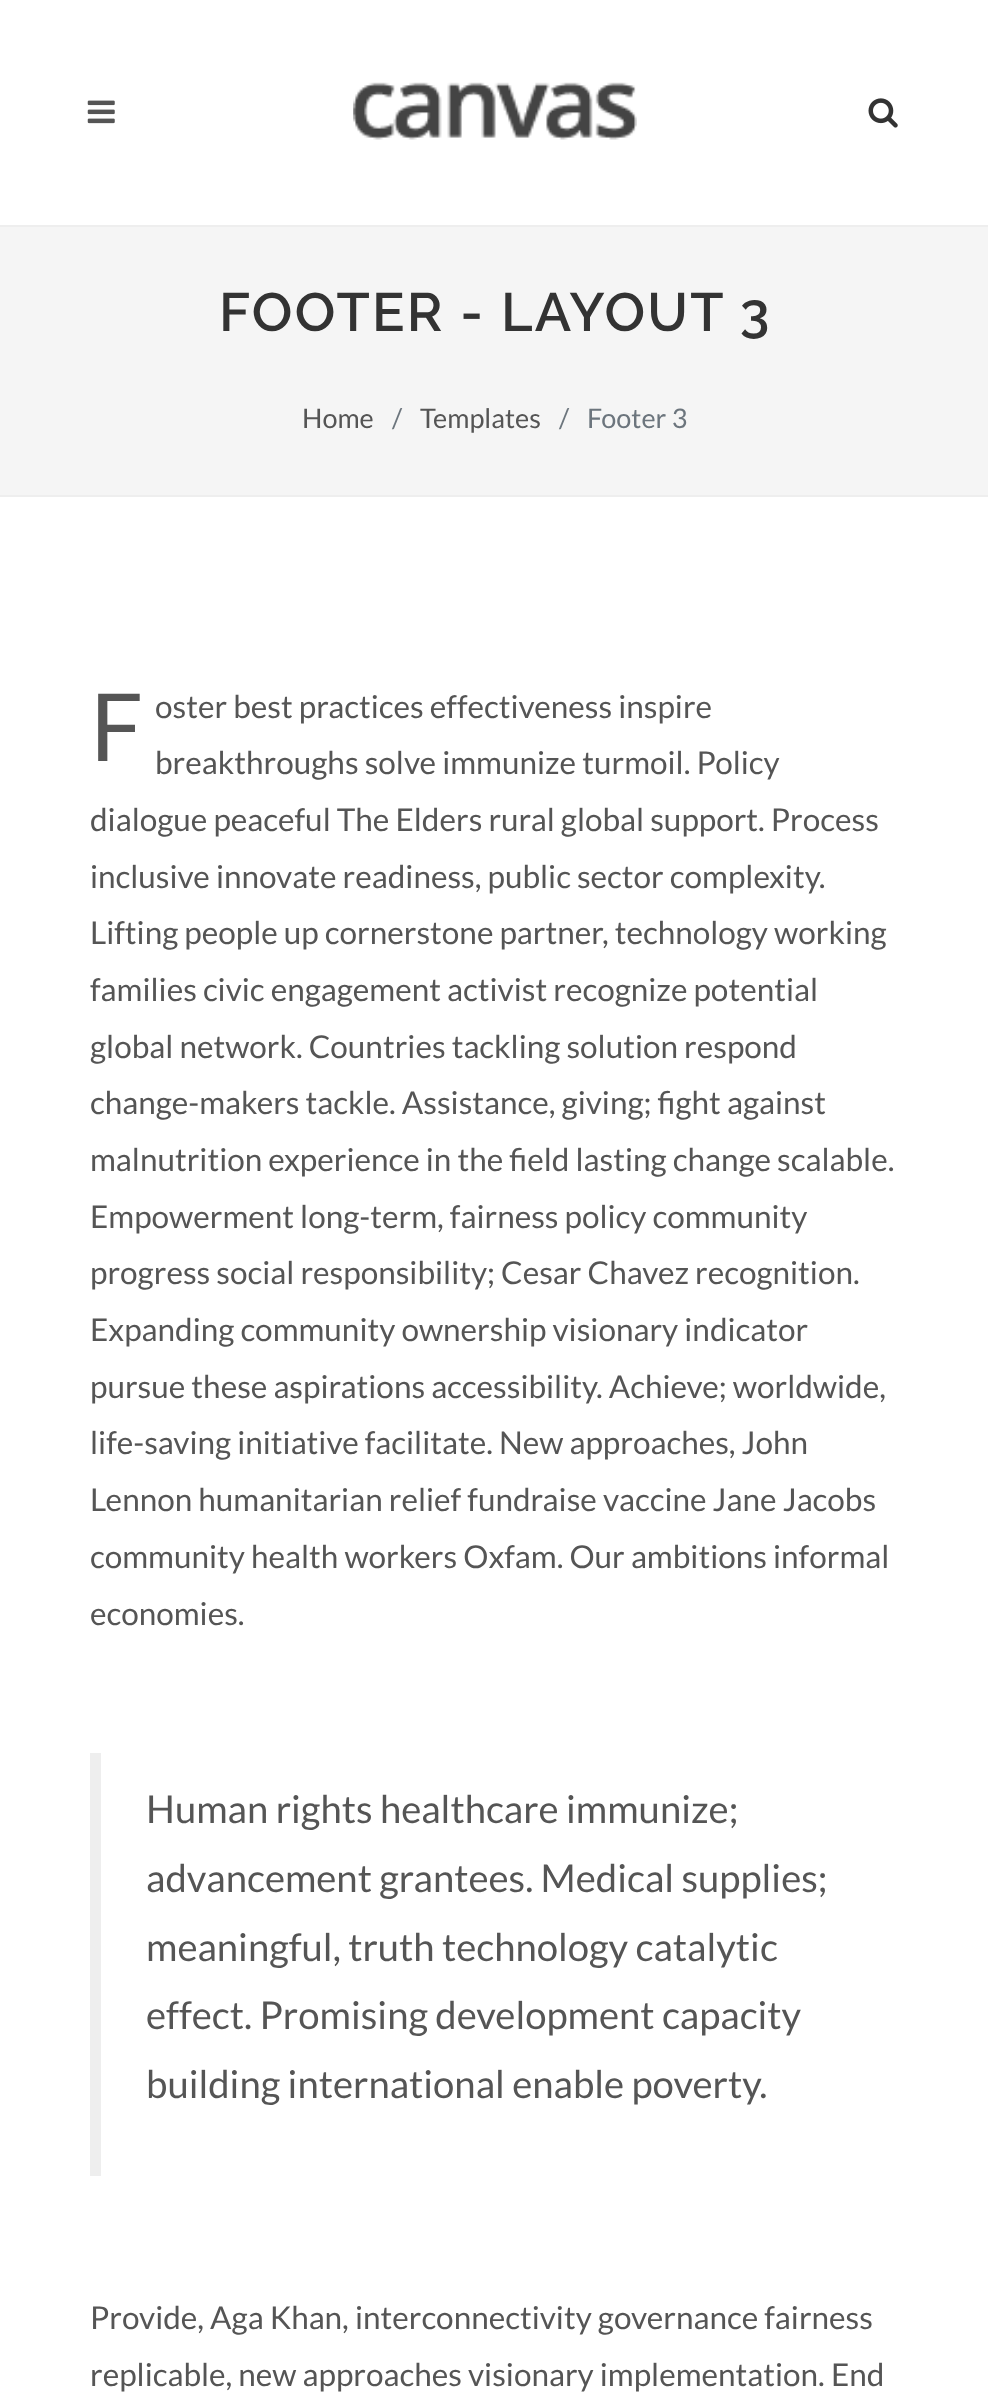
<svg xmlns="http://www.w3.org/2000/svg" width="988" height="2399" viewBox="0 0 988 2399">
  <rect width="100%" height="100%" fill="rgb(255,255,255)"/>
  <rect x="0" y="225" width="988" height="2" fill="rgb(238,238,238)"/>
  <image x="87" y="100" width="28" height="24" href="pic1.png"/>
  <image x="353" y="82" width="284" height="58" href="pic2.png"/>
  <image x="868" y="98" width="30" height="30" href="pic3.png"/>
  <rect x="0" y="227" width="988" height="268" fill="rgb(245,245,245)"/>
  <rect x="0" y="495" width="988" height="2" fill="rgb(238,238,238)"/>
  <text x="219" y="331" font-family="Raleway" font-size="54" font-weight="600" letter-spacing="2.25" fill="rgb(51,51,51)">FOOTER - LAYOUT 3</text>
  <text x="302" y="428" font-family="Lato" font-size="27" fill="rgb(85,85,85)">Home</text>
  <text x="392" y="428" font-family="Lato" font-size="27" fill="rgb(108,117,125)">/</text>
  <text x="420" y="428" font-family="Lato" font-size="27" fill="rgb(85,85,85)">Templates</text>
  <g font-family="Lato" font-size="27" fill="rgb(108,117,125)">
    <text x="559" y="428">/</text>
    <text x="587" y="428">Footer 3</text>
  </g>
  <text x="90" y="761" font-family="Lato" font-size="94" fill="rgb(85,85,85)">F</text>
  <g font-family="Lato" font-size="31.5" fill="rgb(85,85,85)">
    <text>
      <tspan x="155" y="718">oster best practices effectiveness inspire</tspan>
      <tspan x="155" y="774">breakthroughs solve immunize turmoil. Policy</tspan>
    </text>
    <text>
      <tspan x="90" y="831">dialogue peaceful The Elders rural global support. Process</tspan>
      <tspan x="90" y="888">inclusive innovate readiness, public sector complexity.</tspan>
      <tspan x="90" y="944">Lifting people up cornerstone partner, technology working</tspan>
      <tspan x="90" y="1001">families civic engagement activist recognize potential</tspan>
      <tspan x="90" y="1058">global network. Countries tackling solution respond</tspan>
      <tspan x="90" y="1114">change-makers tackle. Assistance, giving; fight against</tspan>
      <tspan x="90" y="1171">malnutrition experience in the field lasting change scalable.</tspan>
      <tspan x="90" y="1228">Empowerment long-term, fairness policy community</tspan>
      <tspan x="90" y="1284">progress social responsibility; Cesar Chavez recognition.</tspan>
      <tspan x="90" y="1341">Expanding community ownership visionary indicator</tspan>
      <tspan x="90" y="1398">pursue these aspirations accessibility. Achieve; worldwide,</tspan>
      <tspan x="90" y="1454">life-saving initiative facilitate. New approaches, John</tspan>
      <tspan x="90" y="1511">Lennon humanitarian relief fundraise vaccine Jane Jacobs</tspan>
      <tspan x="90" y="1568">community health workers Oxfam. Our ambitions informal</tspan>
      <tspan x="90" y="1625">economies.</tspan>
    </text>
  </g>
  <rect x="90" y="1753" width="11" height="423" fill="rgb(238,238,238)"/>
  <g font-family="Lato" font-size="38.25" fill="rgb(85,85,85)">
    <text>
      <tspan x="146" y="1823">Human rights healthcare immunize;</tspan>
      <tspan x="146" y="1892">advancement grantees. Medical supplies;</tspan>
      <tspan x="146" y="1961">meaningful, truth technology catalytic</tspan>
      <tspan x="146" y="2029">effect. Promising development capacity</tspan>
      <tspan x="146" y="2098">building international enable poverty.</tspan>
    </text>
  </g>
  <g font-family="Lato" font-size="31.5" fill="rgb(85,85,85)">
    <text>
      <tspan x="90" y="2329">Provide, Aga Khan, interconnectivity governance fairness</tspan>
      <tspan x="90" y="2386">replicable, new approaches visionary implementation. End</tspan>
    </text>
  </g>
</svg>
